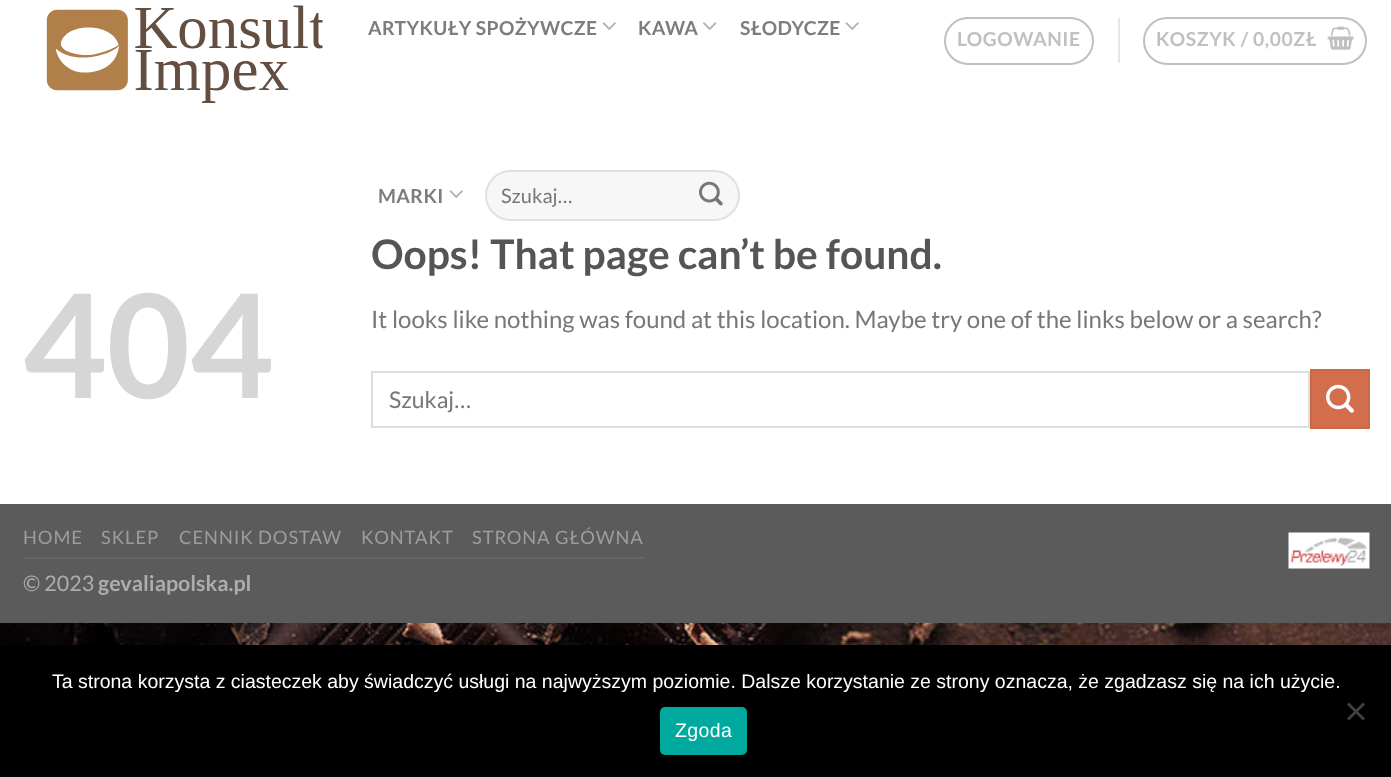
<svg xmlns="http://www.w3.org/2000/svg" width="1391" height="777" viewBox="0 0 1391 777">
  <rect width="100%" height="100%" fill="rgb(255,255,255)"/>
  <image x="0" y="623" width="1391" height="22" href="pic1.png"/>
  <image x="46" y="5" width="277" height="98" href="pic2.png"/>
  <text x="368" y="35" font-family="Lato" font-size="19.25" font-weight="bold" letter-spacing="0.4" fill="rgb(125,125,125)">ARTYKUŁY SPOŻYWCZE</text>
  <image x="602" y="22" width="14" height="8" href="pic3.png"/>
  <text x="638" y="35" font-family="Lato" font-size="19.25" font-weight="bold" letter-spacing="0.4" fill="rgb(125,125,125)">KAWA</text>
  <image x="703" y="22" width="14" height="8" href="pic4.png"/>
  <text x="740" y="35" font-family="Lato" font-size="19.25" font-weight="bold" letter-spacing="0.4" fill="rgb(125,125,125)">SŁODYCZE</text>
  <image x="845" y="22" width="14" height="8" href="pic3.png"/>
  <text x="378" y="203" font-family="Lato" font-size="19.25" font-weight="bold" letter-spacing="0.4" fill="rgb(125,125,125)">MARKI</text>
  <image x="449" y="190" width="14" height="8" href="pic3.png"/>
  <rect x="485" y="170" width="255" height="51" rx="25.5" fill="rgb(247,247,247)"/>
  <rect x="486" y="171" width="253" height="49" rx="24.5" fill="none" stroke="rgba(0,0,0,0.09)" stroke-width="2"/>
  <text x="501" y="203" font-family="Lato" font-size="20" fill="rgb(119,119,119)">Szukaj…</text>
  <image x="699" y="181" width="24" height="25" href="pic5.png"/>
  <rect x="945" y="18" width="148" height="46" rx="23" fill="none" stroke="rgb(192,192,192)" stroke-width="2"/>
  <text x="957" y="46" font-family="Lato" font-size="19.25" font-weight="bold" letter-spacing="0.6" fill="rgb(192,192,192)">LOGOWANIE</text>
  <rect x="1118" y="18" width="2" height="45" fill="rgb(230,230,230)"/>
  <rect x="1144" y="18" width="222" height="46" rx="23" fill="none" stroke="rgb(192,192,192)" stroke-width="2"/>
  <text x="1156" y="46" font-family="Lato" font-size="19.25" font-weight="bold" letter-spacing="0.6" fill="rgb(192,192,192)">KOSZYK / 0,00ZŁ</text>
  <image x="1327" y="26" width="27" height="24" href="pic6.png"/>
  <text x="23" y="398" font-family="Lato" font-size="144" font-weight="bold" fill="rgb(214,214,214)">404</text>
  <text x="371" y="269" font-family="Lato" font-size="40.75" font-weight="bold" fill="rgb(85,85,85)">Oops! That page can’t be found.</text>
  <text x="371" y="328" font-family="Lato" font-size="24" fill="rgb(119,119,119)">It looks like nothing was found at this location. Maybe try one of the links below or a search?</text>
  <rect x="372" y="372" width="937" height="55" fill="none" stroke="rgb(221,221,221)" stroke-width="2"/>
  <text x="389" y="408" font-family="Lato" font-size="23" fill="rgb(119,119,119)">Szukaj…</text>
  <rect x="1311" y="370" width="58" height="58" fill="rgb(210,110,75)" stroke="rgb(200,105,71)" stroke-width="2"/>
  <image x="1326" y="384" width="28" height="29" href="pic7.png"/>
  <rect x="0" y="504" width="1391" height="119" fill="rgb(91,91,91)"/>
  <rect x="23" y="557" width="621" height="2" fill="rgb(101,101,101)"/>
  <g font-family="Lato" font-size="18.4" letter-spacing="0.9" fill="rgb(157,157,157)">
    <text x="23" y="544">HOME</text>
    <text x="101" y="544">SKLEP</text>
    <text x="179" y="544">CENNIK DOSTAW</text>
    <text x="361" y="544">KONTAKT</text>
    <text x="472" y="544">STRONA GŁÓWNA</text>
  </g>
  <text x="23" y="591" font-family="Lato" font-size="21.5" fill="rgb(173,173,173)">© 2023</text>
  <text x="98" y="591" font-family="Lato" font-size="21.5" font-weight="bold" fill="rgb(173,173,173)">gevaliapolska.pl</text>
  <image x="1288" y="532" width="82" height="37" href="pic8.png"/>
  <rect x="0" y="645" width="1391" height="132" fill="rgb(0,0,0)"/>
  <text x="52" y="688" font-family="Liberation Sans" font-size="19.5" fill="rgb(255,255,255)">Ta strona korzysta z ciasteczek aby świadczyć usługi na najwyższym poziomie. Dalsze korzystanie ze strony oznacza, że zgadzasz się na ich użycie.</text>
  <path d="M1363 702.5L1365 704.5L1349 720.5L1347 718.5Z" fill="rgb(64,64,64)"/>
  <path d="M1347 704.5L1349 702.5L1365 718.5L1363 720.5Z" fill="rgb(64,64,64)"/>
  <rect x="660" y="707" width="87" height="48" rx="5" fill="rgb(0,169,157)"/>
  <text x="675" y="737" font-family="Liberation Sans" font-size="19.5" letter-spacing="0.4" fill="rgb(255,255,255)">Zgoda</text>
</svg>
